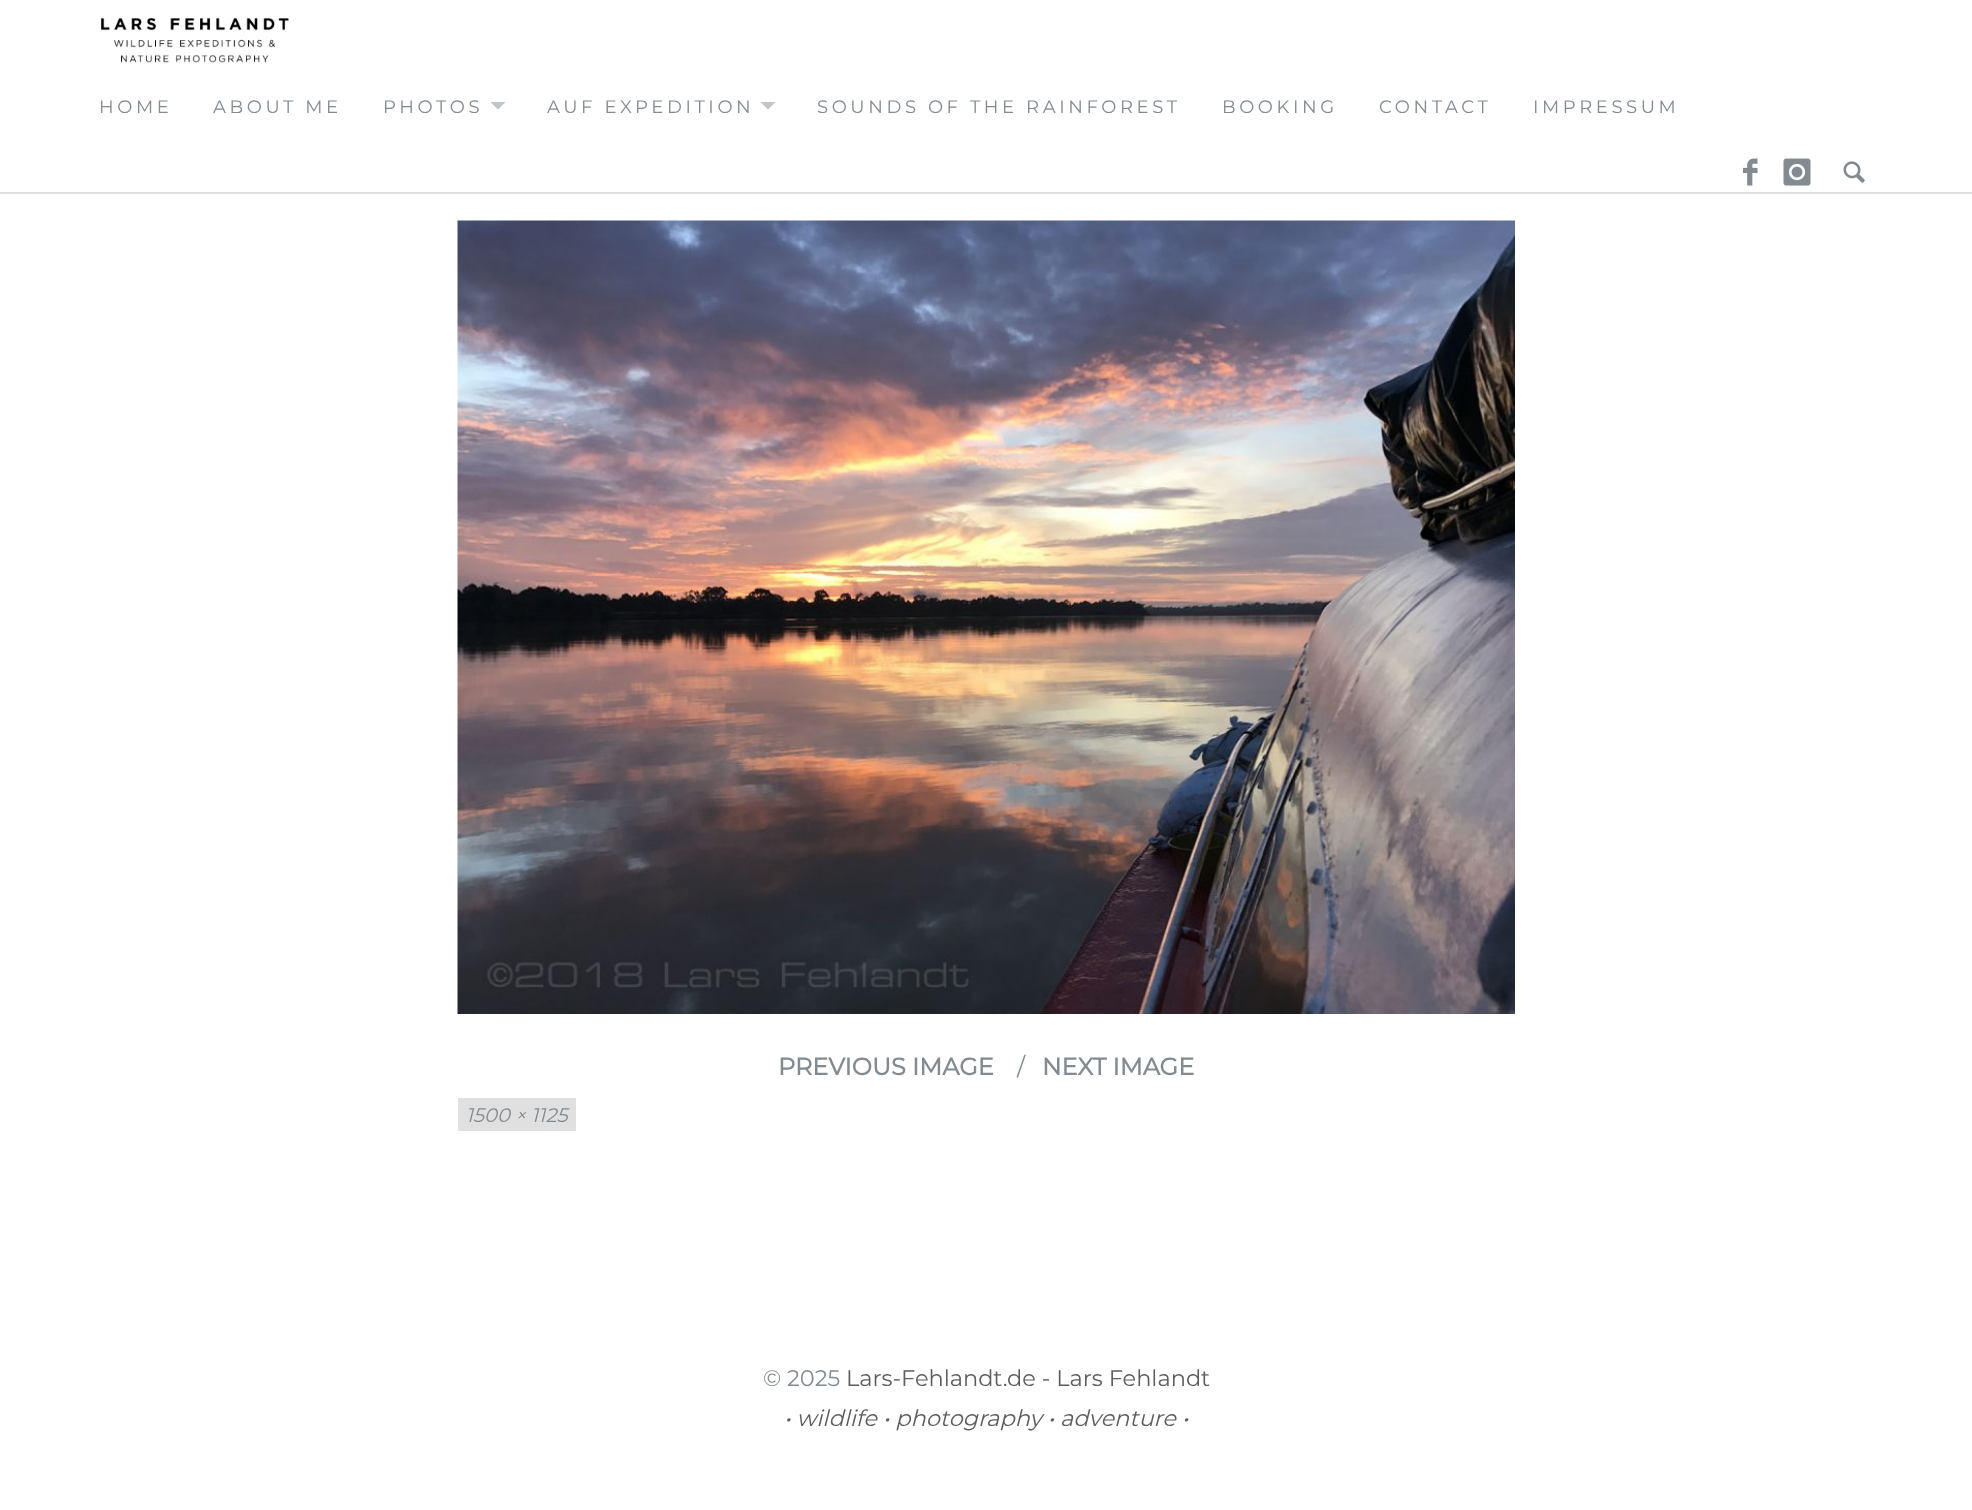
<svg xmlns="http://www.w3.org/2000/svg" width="1972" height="1510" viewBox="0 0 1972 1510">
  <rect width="100%" height="100%" fill="rgb(255,255,255)"/>
  <rect x="0" y="192" width="1972" height="2" fill="rgb(224,224,224)"/>
  <image x="101" y="18" width="188" height="45" href="pic1.png"/>
  <g font-family="Montserrat" font-size="18" font-weight="100" letter-spacing="3.6" fill="rgb(131,139,145)">
    <text x="99" y="113">HOME</text>
    <text x="213" y="113">ABOUT ME</text>
    <text x="383" y="113">PHOTOS</text>
  </g>
  <path d="M490.5 102H505.5L498 109.5Z" fill="rgb(193,197,200)"/>
  <text x="547" y="113" font-family="Montserrat" font-size="18" font-weight="100" letter-spacing="3.6" fill="rgb(131,139,145)">AUF EXPEDITION</text>
  <path d="M760.5 102H775.5L768 109.5Z" fill="rgb(193,197,200)"/>
  <g font-family="Montserrat" font-size="18" font-weight="100" letter-spacing="3.6" fill="rgb(131,139,145)">
    <text x="817" y="113">SOUNDS OF THE RAINFOREST</text>
    <text x="1222" y="113">BOOKING</text>
    <text x="1379" y="113">CONTACT</text>
    <text x="1533" y="113">IMPRESSUM</text>
  </g>
  <image x="1743" y="158" width="15" height="28" href="pic2.png"/>
  <image x="1783" y="158" width="28" height="28" href="pic3.png"/>
  <image x="1843" y="161" width="22" height="22" href="pic4.png"/>
  <image x="457" y="220" width="1058" height="794" href="pic5.png"/>
  <text x="778" y="1075" font-family="Montserrat" font-size="24" font-weight="bold" fill="rgb(131,139,145)">PREVIOUS IMAGE</text>
  <text x="1017" y="1075" font-family="Montserrat" font-size="24" font-weight="100" fill="rgb(131,139,145)">∕</text>
  <text x="1042" y="1075" font-family="Montserrat" font-size="24" font-weight="bold" fill="rgb(131,139,145)">NEXT IMAGE</text>
  <rect x="458" y="1098" width="118" height="33" fill="rgb(224,224,224)"/>
  <text x="466" y="1122" font-family="Montserrat" font-size="19.5" font-weight="100" font-style="italic" fill="rgb(131,139,145)">1500 × 1125</text>
  <text x="763" y="1386" font-family="Montserrat" font-size="22.5" font-weight="100" fill="rgb(131,139,145)">© 2025</text>
  <text x="846" y="1386" font-family="Montserrat" font-size="22.5" font-weight="100" fill="rgb(93,93,94)">Lars-Fehlandt.de - Lars Fehlandt</text>
  <text x="784" y="1426" font-family="Montserrat" font-size="22.5" font-weight="100" font-style="italic" fill="rgb(93,93,94)">• wildlife • photography • adventure •</text>
</svg>
